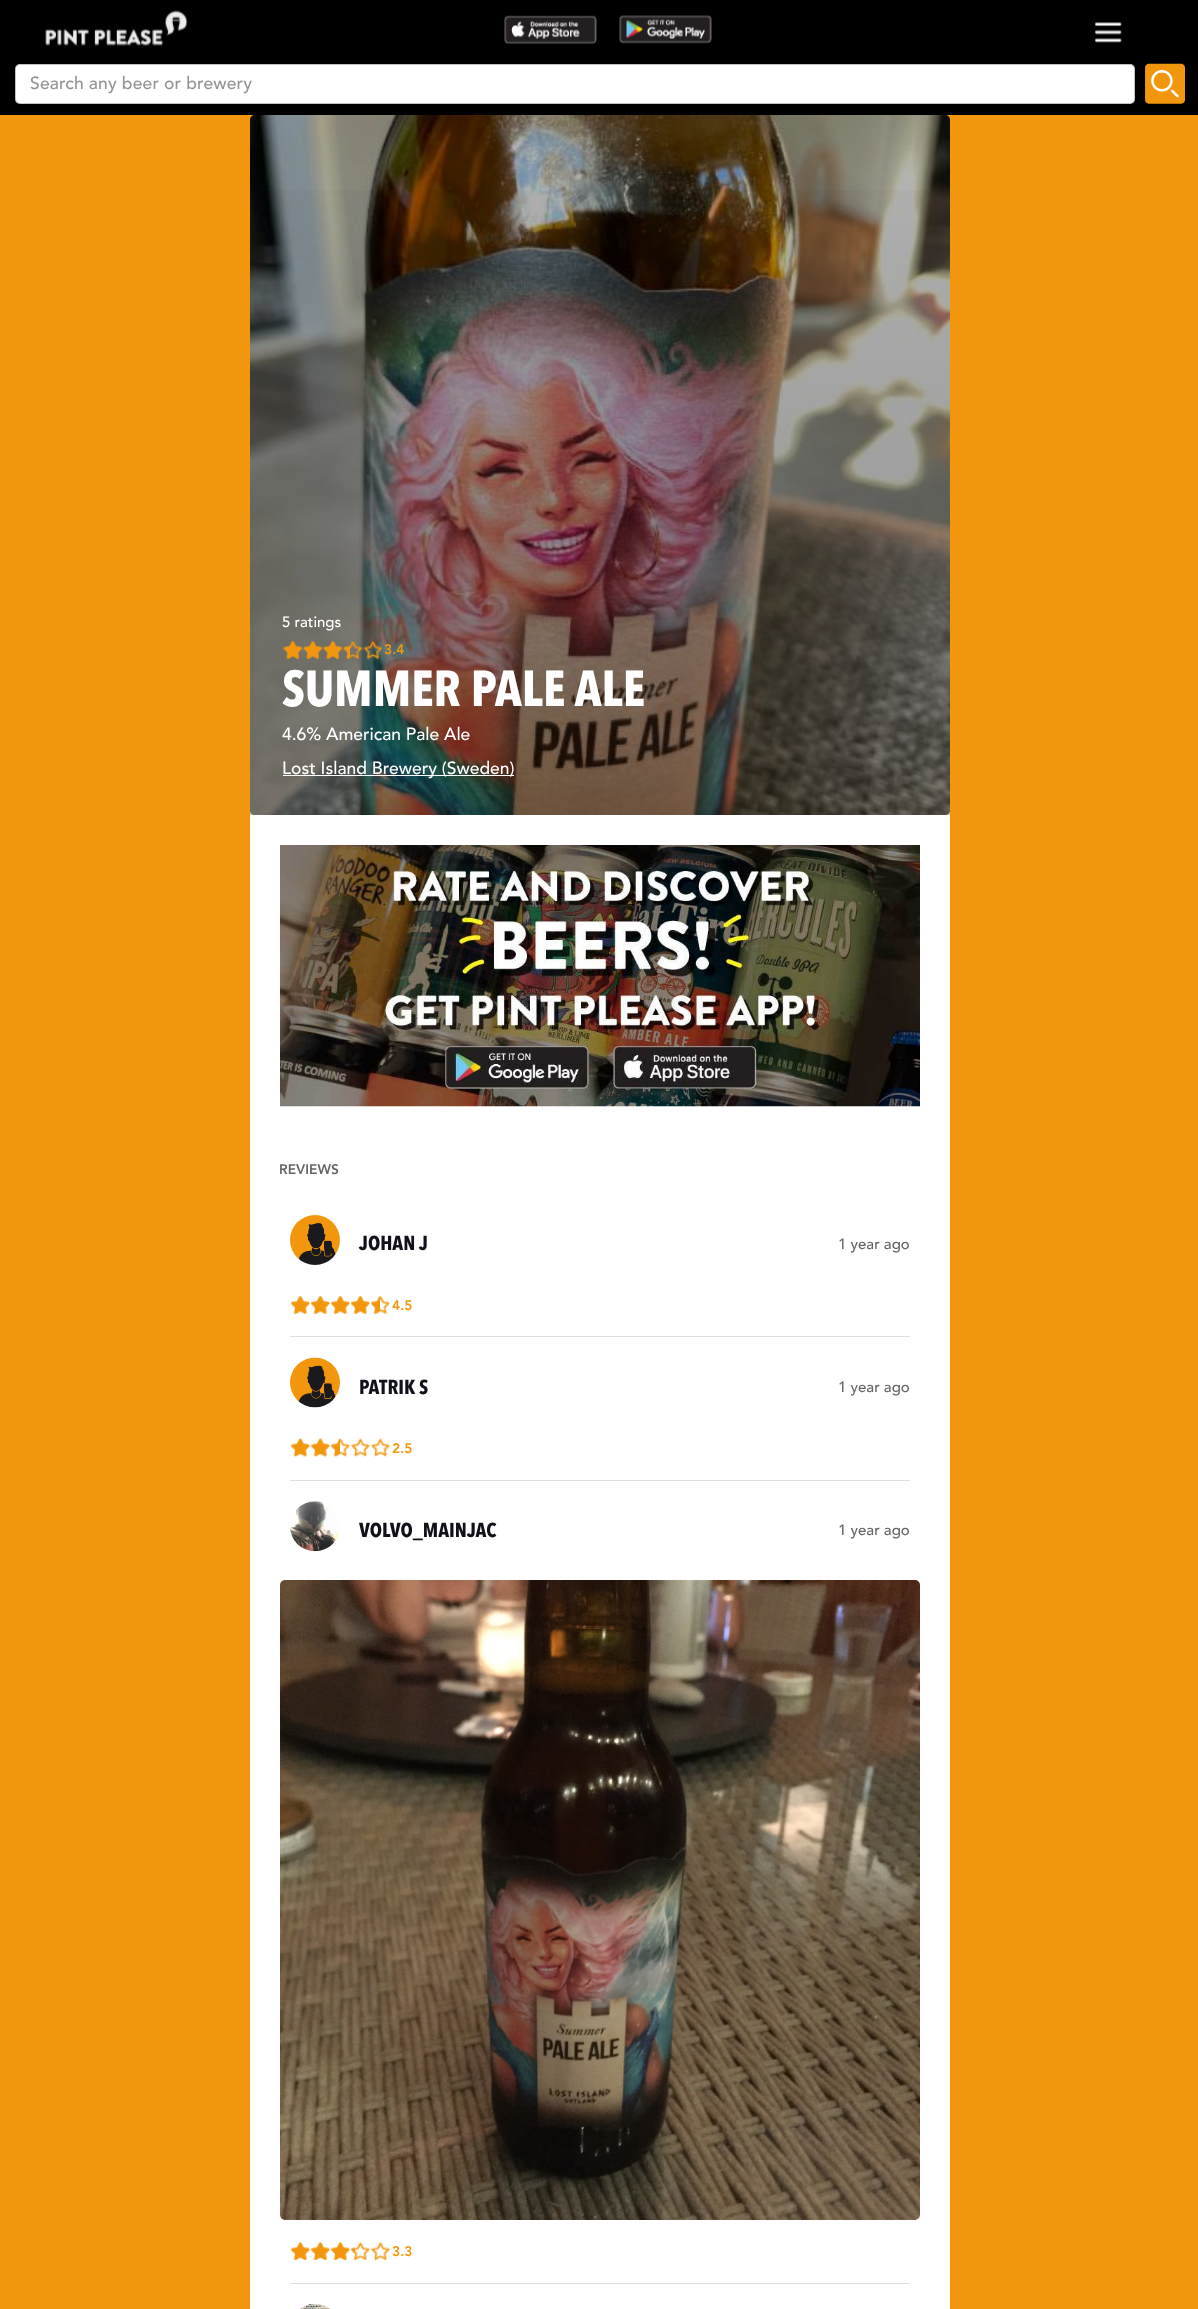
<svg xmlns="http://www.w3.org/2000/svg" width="1198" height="2309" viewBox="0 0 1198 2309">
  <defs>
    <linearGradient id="g1" gradientUnits="userSpaceOnUse" x1="600" y1="115" x2="600" y2="815"><stop offset="0" stop-color="rgb(0,0,0)" stop-opacity="0"/><stop offset="1" stop-color="rgb(0,0,0)" stop-opacity="0.2"/></linearGradient>
  </defs>
  <rect width="100%" height="100%" fill="rgb(242,151,13)"/>
  <rect x="0" y="0" width="1198" height="115" fill="rgb(0,0,0)"/>
  <image x="45" y="10" width="143" height="36" href="pic1.png"/>
  <image x="504" y="15" width="93" height="29" href="pic2.png"/>
  <image x="619" y="15" width="93" height="29" href="pic3.png"/>
  <image x="1094" y="22" width="28" height="21" href="pic4.png"/>
  <rect x="15" y="64" width="1120" height="40" rx="5" fill="rgb(255,255,255)"/>
  <rect x="15.5" y="64.5" width="1119" height="39" rx="4.5" fill="none" stroke="rgba(0,0,0,0.24)"/>
  <text x="30" y="89" font-family="Avenir" font-size="17.5" font-weight="500" letter-spacing="0.15" fill="rgb(148,148,151)">Search any beer or brewery</text>
  <image x="1145" y="63" width="40" height="41" href="pic5.png"/>
  <rect x="250" y="115" width="700" height="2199" rx="5" fill="rgb(255,255,255)"/>
  <rect x="250" y="115" width="700" height="700" rx="5" fill="rgb(0,0,0)"/>
  <image x="250" y="115" width="700" height="700" href="pic6.png"/>
  <rect x="250" y="190" width="700" height="625" fill="url(#g1)"/>
  <text x="282" y="627" font-family="Avenir" font-size="15" font-weight="500" fill="rgb(255,255,255)">5 ratings</text>
  <image x="282" y="641" width="101" height="18" href="pic7.png"/>
  <image x="282" y="641" width="68" height="18" href="pic8.png"/>
  <text x="384" y="654" font-family="Avenir" font-size="13.75" font-weight="900" fill="rgb(242,151,13)">3.4</text>
  <text x="282" y="706" font-family="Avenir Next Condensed" font-size="50" font-weight="bold" fill="rgb(255,255,255)">SUMMER PALE ALE</text>
  <text x="282" y="740" font-family="Avenir" font-size="17.5" font-weight="500" fill="rgb(255,255,255)">4.6% American Pale Ale</text>
  <rect x="283" y="775" width="231" height="1" fill="rgb(255,255,255)"/>
  <text x="282" y="774" font-family="Avenir" font-size="17.5" font-weight="500" fill="rgb(255,255,255)">Lost Island Brewery (Sweden)</text>
  <image x="280" y="845" width="640" height="262" href="pic9.png"/>
  <text x="279" y="1174" font-family="Avenir" font-size="13.75" font-weight="900" fill="rgb(102,102,106)">REVIEWS</text>
  <image x="290" y="1215" width="50" height="50" href="pic10.png"/>
  <text x="359" y="1250" font-family="Avenir Next Condensed" font-size="20" font-weight="bold" fill="rgb(17,17,26)">JOHAN J</text>
  <text x="838" y="1249" font-family="Avenir" font-size="15" font-weight="500" fill="rgb(102,102,106)">1 year ago</text>
  <image x="290" y="1296" width="100" height="18" href="pic11.png"/>
  <image x="291" y="1296" width="89" height="18" href="pic12.png"/>
  <text x="392" y="1310" font-family="Avenir" font-size="13.75" font-weight="900" fill="rgb(242,151,13)">4.5</text>
  <rect x="290" y="1336" width="620" height="1" fill="rgb(224,224,224)"/>
  <image x="290" y="1357" width="50" height="51" href="pic13.png"/>
  <text x="359" y="1394" font-family="Avenir Next Condensed" font-size="20" font-weight="bold" fill="rgb(17,17,26)">PATRIK S</text>
  <text x="838" y="1392" font-family="Avenir" font-size="15" font-weight="500" fill="rgb(102,102,106)">1 year ago</text>
  <image x="290" y="1438" width="100" height="19" href="pic14.png"/>
  <image x="290" y="1438" width="50" height="19" href="pic15.png"/>
  <text x="392" y="1453" font-family="Avenir" font-size="13.75" font-weight="900" fill="rgb(242,151,13)">2.5</text>
  <rect x="290" y="1480" width="620" height="1" fill="rgb(224,224,224)"/>
  <image x="290" y="1501" width="50" height="51" href="pic16.png"/>
  <text x="359" y="1537" font-family="Avenir Next Condensed" font-size="20" font-weight="bold" fill="rgb(17,17,26)">VOLVO_MAINJAC</text>
  <text x="838" y="1535" font-family="Avenir" font-size="15" font-weight="500" fill="rgb(102,102,106)">1 year ago</text>
  <image x="280" y="1580" width="640" height="640" href="pic17.png"/>
  <image x="290" y="2242" width="100" height="18" href="pic18.png"/>
  <image x="290" y="2242" width="65" height="18" href="pic19.png"/>
  <text x="392" y="2256" font-family="Avenir" font-size="13.75" font-weight="900" fill="rgb(242,151,13)">3.3</text>
  <rect x="290" y="2283" width="620" height="1" fill="rgb(224,224,224)"/>
  <image x="300" y="2304" width="30" height="5" href="pic20.png"/>
</svg>
